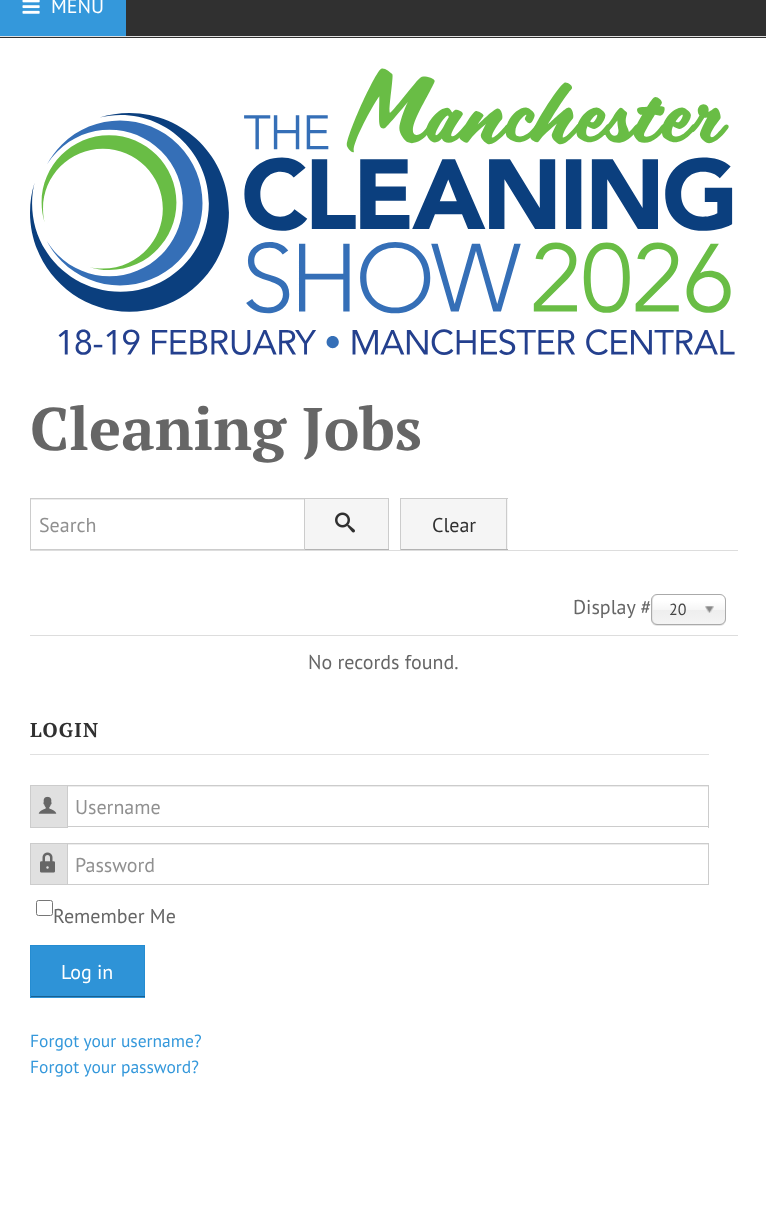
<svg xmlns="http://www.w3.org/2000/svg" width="766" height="1215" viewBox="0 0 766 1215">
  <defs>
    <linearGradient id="g1" gradientUnits="userSpaceOnUse" x1="689" y1="595" x2="689" y2="624"><stop offset="0.2" stop-color="rgb(255,255,255)"/><stop offset="0.5" stop-color="rgb(246,246,246)"/><stop offset="0.52" stop-color="rgb(238,238,238)"/><stop offset="1" stop-color="rgb(244,244,244)"/></linearGradient>
  </defs>
  <rect width="100%" height="100%" fill="rgb(255,255,255)"/>
  <rect x="0" y="0" width="766" height="38" fill="rgb(48,48,48)"/>
  <rect x="0" y="36" width="766" height="1" fill="rgb(224,224,224)"/>
  <rect x="0" y="0" width="126" height="36" fill="rgb(52,152,219)"/>
  <image x="22" y="0" width="18" height="14" href="pic1.png"/>
  <text x="51" y="13" font-family="PT Sans" font-size="20" fill="rgb(255,255,255)">MENU</text>
  <image x="30" y="68" width="705" height="287" href="pic2.png"/>
  <text x="30" y="450" font-family="PT Serif" font-size="60" font-weight="bold" fill="rgb(102,102,102)">Cleaning Jobs</text>
  <rect x="31" y="499" width="273" height="1" fill="rgb(236,236,236)"/>
  <rect x="304" y="498" width="85" height="1" fill="rgb(204,204,204)"/>
  <rect x="388" y="498" width="1" height="52" fill="rgb(204,204,204)"/>
  <rect x="304" y="549" width="85" height="1" fill="rgb(179,179,179)"/>
  <rect x="30.5" y="498.5" width="274" height="51" fill="none" stroke="rgb(204,204,204)"/>
  <text x="39" y="532" font-family="PT Sans" font-size="20" fill="rgb(144,144,144)">Search</text>
  <rect x="305" y="499" width="83" height="50" fill="rgb(245,245,245)"/>
  <image x="335" y="512" width="20" height="21" href="pic3.png"/>
  <rect x="401" y="499" width="107" height="50" fill="rgb(245,245,245)"/>
  <rect x="400" y="498" width="108" height="1" fill="rgb(204,204,204)"/>
  <rect x="506" y="498" width="1" height="52" fill="rgb(204,204,204)"/>
  <rect x="400" y="549" width="108" height="1" fill="rgb(179,179,179)"/>
  <rect x="400" y="498" width="1" height="52" fill="rgb(204,204,204)"/>
  <text x="432" y="532" font-family="PT Sans" font-size="20" fill="rgb(48,48,48)">Clear</text>
  <rect x="30" y="550" width="708" height="1" fill="rgb(221,221,221)"/>
  <text x="573" y="614" font-family="PT Sans" font-size="20" fill="rgb(102,102,102)">Display #</text>
  <rect x="651" y="595" width="75" height="31" rx="6" fill="rgba(0,0,0,0.1)" filter="blur(0.5px)"/>
  <rect x="653" y="595" width="72" height="29" rx="5" fill="url(#g1)"/>
  <rect x="651.5" y="594.5" width="74" height="30" rx="5.5" fill="none" stroke="rgb(170,170,170)"/>
  <text x="669" y="615" font-family="PT Sans" font-size="16" fill="rgb(68,68,68)">20</text>
  <image x="705" y="606" width="9" height="7" href="pic4.png"/>
  <rect x="30" y="635" width="708" height="1" fill="rgb(221,221,221)"/>
  <text x="308" y="669" font-family="PT Sans" font-size="20" fill="rgb(102,102,102)">No records found.</text>
  <rect x="30" y="754" width="679" height="1" fill="rgb(224,224,224)"/>
  <text x="30" y="737" font-family="PT Serif" font-size="20" font-weight="bold" letter-spacing="1.25" fill="rgb(48,48,48)">LOGIN</text>
  <rect x="30.5" y="785.5" width="37" height="42" fill="rgb(224,224,224)" stroke="rgb(204,204,204)"/>
  <image x="38" y="796" width="19" height="18" href="pic5.png"/>
  <rect x="68" y="786" width="640" height="1" fill="rgb(236,236,236)"/>
  <rect x="68" y="785" width="641" height="1" fill="rgb(204,204,204)"/>
  <rect x="708" y="785" width="1" height="43" fill="rgb(204,204,204)"/>
  <rect x="68" y="826" width="641" height="1" fill="rgb(204,204,204)"/>
  <text x="75" y="814" font-family="PT Sans" font-size="20" fill="rgb(144,144,144)">Username</text>
  <rect x="30.5" y="843.5" width="37" height="41" fill="rgb(224,224,224)" stroke="rgb(204,204,204)"/>
  <image x="40" y="852" width="15" height="21" href="pic6.png"/>
  <rect x="68" y="844" width="640" height="1" fill="rgb(236,236,236)"/>
  <rect x="68" y="843" width="641" height="1" fill="rgb(204,204,204)"/>
  <rect x="708" y="843" width="1" height="42" fill="rgb(204,204,204)"/>
  <rect x="68" y="884" width="641" height="1" fill="rgb(204,204,204)"/>
  <text x="75" y="872" font-family="PT Sans" font-size="20" fill="rgb(144,144,144)">Password</text>
  <rect x="36.5" y="900.5" width="16" height="15" rx="2" fill="none" stroke="rgb(118,118,118)"/>
  <text x="53" y="923" font-family="PT Sans" font-size="20" fill="rgb(102,102,102)">Remember Me</text>
  <rect x="31" y="946" width="113" height="52" fill="rgb(46,147,215)"/>
  <rect x="30" y="945" width="115" height="1" fill="rgb(37,140,209)"/>
  <rect x="144" y="945" width="1" height="53" fill="rgb(37,140,209)"/>
  <rect x="30" y="996" width="115" height="1" fill="rgb(25,96,144)"/>
  <rect x="30" y="945" width="1" height="53" fill="rgb(37,140,209)"/>
  <text x="61" y="979" font-family="PT Sans" font-size="20" fill="rgb(255,255,255)">Log in</text>
  <g font-family="PT Sans" font-size="17.5" fill="rgb(52,152,219)">
    <text>
      <tspan x="30" y="1047">Forgot your username?</tspan>
      <tspan x="30" y="1073">Forgot your password?</tspan>
    </text>
  </g>
</svg>
